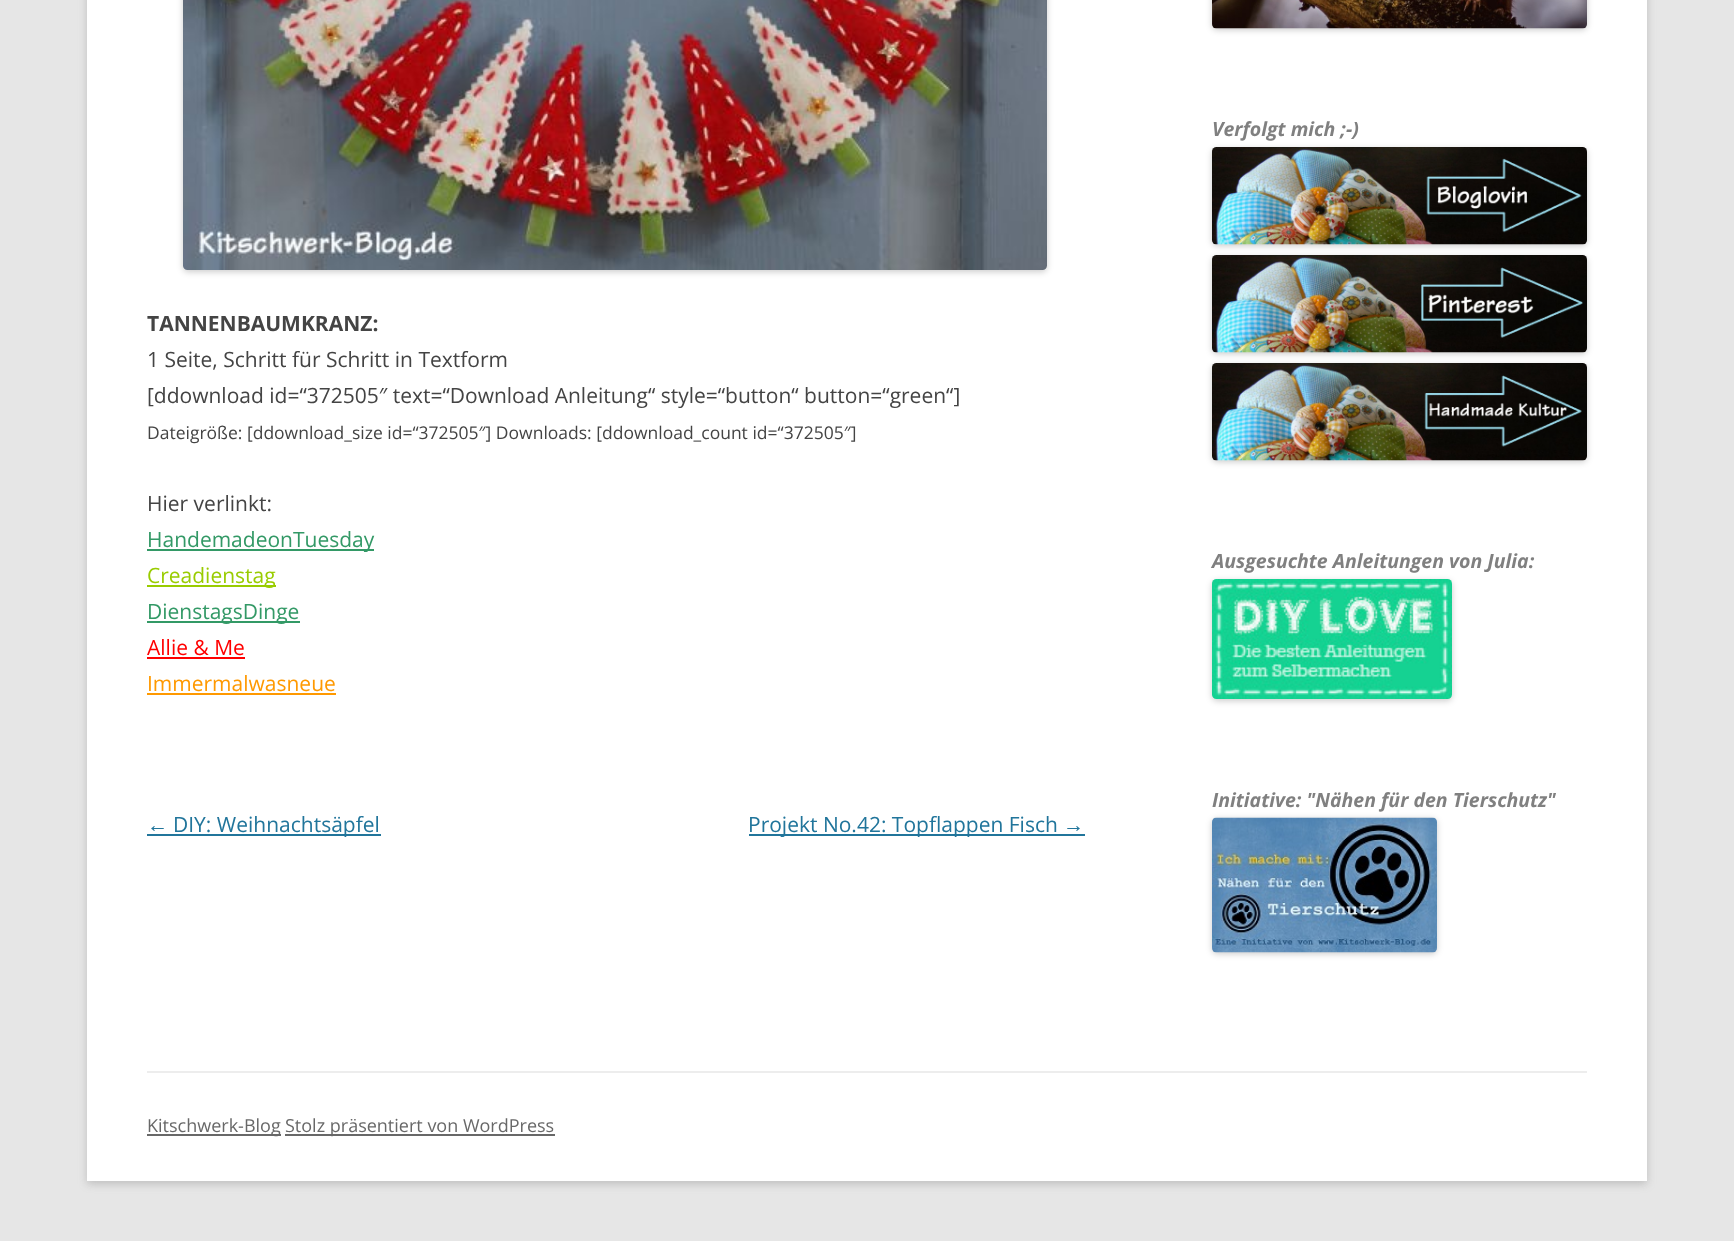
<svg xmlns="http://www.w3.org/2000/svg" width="1734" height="1241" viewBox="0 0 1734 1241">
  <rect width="100%" height="100%" fill="rgb(230,230,230)"/>
  <rect x="87" y="-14" width="1560" height="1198" fill="rgba(100,100,100,0.3)" filter="blur(4.5px)"/>
  <rect x="87" y="0" width="1560" height="1181" fill="rgb(255,255,255)"/>
  <rect x="183" y="-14" width="864" height="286" rx="5" fill="rgba(0,0,0,0.2)" filter="blur(3px)"/>
  <image x="183" y="0" width="864" height="270" href="pic1.png"/>
  <text x="147" y="331" font-family="Open Sans" font-size="21" font-weight="bold" fill="rgb(68,68,68)">TANNENBAUMKRANZ:</text>
  <g font-family="Open Sans" font-size="21" fill="rgb(68,68,68)">
    <text>
      <tspan x="147" y="367">1 Seite, Schritt für Schritt in Textform</tspan>
      <tspan x="147" y="403">[ddownload id=“372505″ text=“Download Anleitung“ style=“button“ button=“green“]</tspan>
    </text>
  </g>
  <text x="147" y="439" font-family="Open Sans" font-size="17.5" fill="rgb(68,68,68)">Dateigröße: [ddownload_size id=“372505″] Downloads: [ddownload_count id=“372505″]</text>
  <text x="147" y="511" font-family="Open Sans" font-size="21" fill="rgb(68,68,68)">Hier verlinkt:</text>
  <rect x="147" y="549" width="227" height="2" fill="rgb(51,153,102)"/>
  <text x="147" y="547" font-family="Open Sans" font-size="21" fill="rgb(51,153,102)">HandemadeonTuesday</text>
  <rect x="147" y="585" width="129" height="2" fill="rgb(153,204,0)"/>
  <text x="147" y="583" font-family="Open Sans" font-size="21" fill="rgb(153,204,0)">Creadienstag</text>
  <rect x="147" y="621" width="153" height="2" fill="rgb(51,153,102)"/>
  <text x="147" y="619" font-family="Open Sans" font-size="21" fill="rgb(51,153,102)">DienstagsDinge</text>
  <text x="147" y="655" font-family="Open Sans" font-size="21" fill="rgb(255,0,0)">Allie &amp; Me</text>
  <rect x="147" y="657" width="98" height="2" fill="rgb(255,0,0)"/>
  <text x="147" y="691" font-family="Open Sans" font-size="21" fill="rgb(255,153,0)">Immermalwasneue</text>
  <rect x="147" y="693" width="189" height="2" fill="rgb(255,153,0)"/>
  <text x="147" y="832" font-family="Liberation Sans" font-size="21" fill="rgb(33,117,155)">←</text>
  <rect x="147" y="834" width="234" height="2" fill="rgb(33,117,155)"/>
  <text x="173" y="832" font-family="Open Sans" font-size="21" fill="rgb(33,117,155)">DIY: Weihnachtsäpfel</text>
  <rect x="749" y="834" width="336" height="2" fill="rgb(33,117,155)"/>
  <text x="748" y="832" font-family="Open Sans" font-size="21" fill="rgb(33,117,155)">Projekt No.42: Topflappen Fisch</text>
  <text x="1063" y="832" font-family="Liberation Sans" font-size="21" fill="rgb(33,117,155)">→</text>
  <rect x="1212" y="-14" width="375" height="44" rx="5" fill="rgba(0,0,0,0.2)" filter="blur(3px)"/>
  <image x="1212" y="0" width="375" height="29" href="pic2.png"/>
  <text x="1212" y="136" font-family="Open Sans" font-size="19.5" font-weight="bold" font-style="italic" fill="rgb(128,128,128)">Verfolgt mich ;-)</text>
  <rect x="1212" y="149" width="375" height="97" rx="5" fill="rgba(0,0,0,0.2)" filter="blur(3px)"/>
  <image x="1212" y="147" width="375" height="98" href="pic3.png"/>
  <rect x="1212" y="257" width="375" height="97" rx="5" fill="rgba(0,0,0,0.2)" filter="blur(3px)"/>
  <image x="1212" y="255" width="375" height="98" href="pic4.png"/>
  <rect x="1212" y="365" width="375" height="97" rx="5" fill="rgba(0,0,0,0.2)" filter="blur(3px)"/>
  <image x="1212" y="363" width="375" height="98" href="pic5.png"/>
  <text x="1212" y="568" font-family="Open Sans" font-size="19.5" font-weight="bold" font-style="italic" fill="rgb(128,128,128)">Ausgesuchte Anleitungen von Julia:</text>
  <rect x="1212" y="581" width="240" height="120" rx="5" fill="rgba(0,0,0,0.2)" filter="blur(3px)"/>
  <image x="1212" y="579" width="240" height="120" href="pic6.png"/>
  <text x="1212" y="807" font-family="Open Sans" font-size="19.5" font-weight="bold" font-style="italic" fill="rgb(128,128,128)">Initiative: "Nähen für den Tierschutz"</text>
  <rect x="1212" y="819" width="225" height="135" rx="5" fill="rgba(0,0,0,0.2)" filter="blur(3px)"/>
  <image x="1212" y="817" width="225" height="136" href="pic7.png"/>
  <rect x="147" y="1071" width="1440" height="2" fill="rgb(237,237,237)"/>
  <rect x="147" y="1134" width="134" height="2" fill="rgb(104,104,104)"/>
  <text x="147" y="1132" font-family="Open Sans" font-size="18" fill="rgb(104,104,104)">Kitschwerk-Blog</text>
  <rect x="285" y="1134" width="270" height="2" fill="rgb(104,104,104)"/>
  <text x="285" y="1132" font-family="Open Sans" font-size="18" fill="rgb(104,104,104)">Stolz präsentiert von WordPress</text>
</svg>
